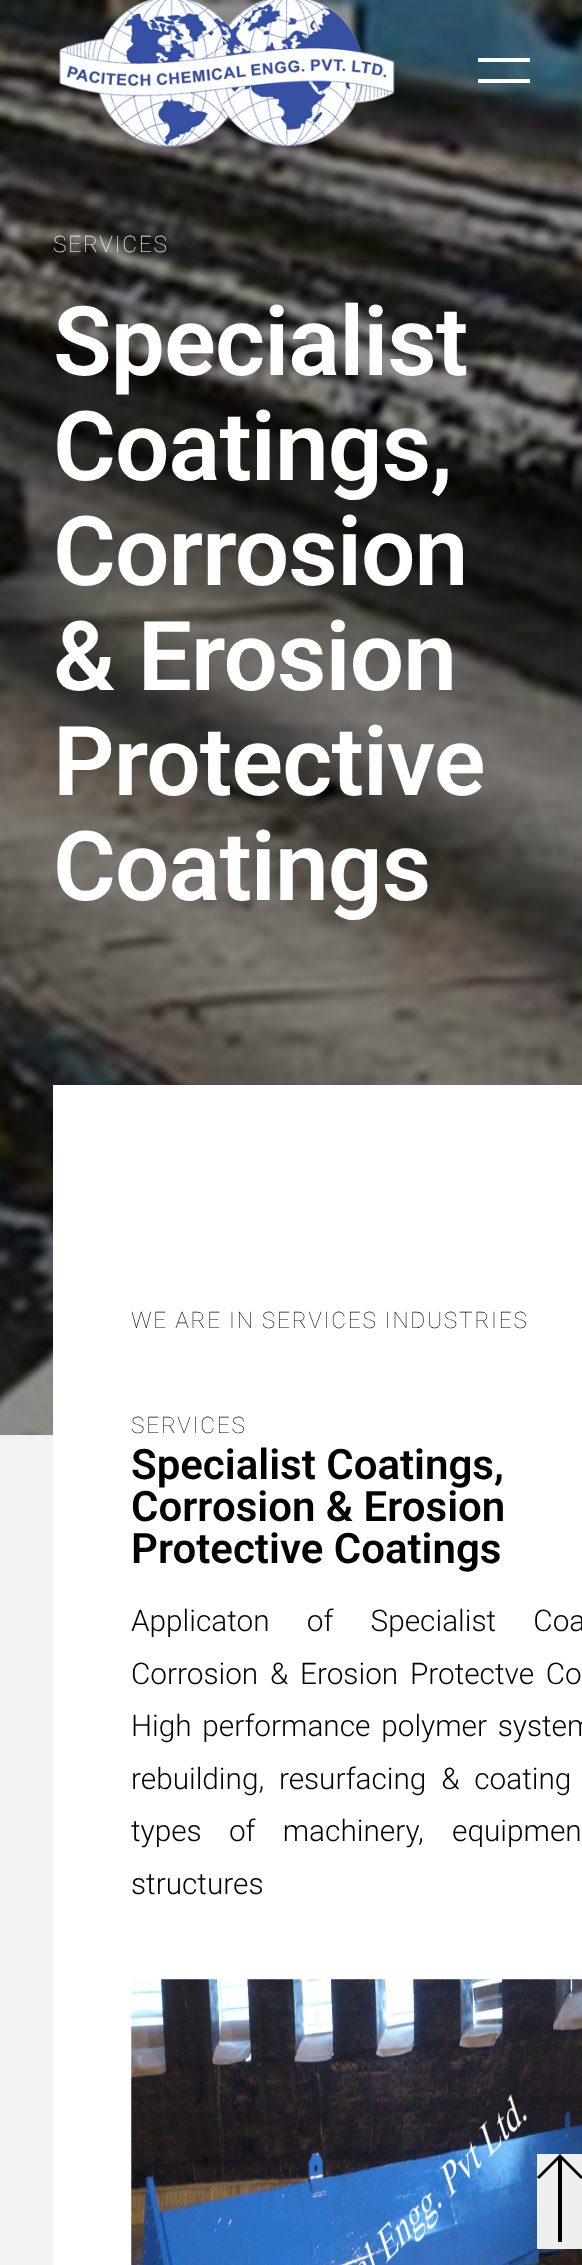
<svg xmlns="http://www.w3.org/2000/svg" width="582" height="2265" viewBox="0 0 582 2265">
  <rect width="100%" height="100%" fill="rgb(242,242,242)"/>
  <image x="0" y="0" width="582" height="1435" href="pic2.png"/>
  <image x="59" y="0" width="336" height="148" href="pic1.png"/>
  <rect x="478" y="58" width="52" height="4" fill="rgb(255,255,255)"/>
  <rect x="478" y="79" width="52" height="4" fill="rgb(255,255,255)"/>
  <text x="53" y="252" font-family="Roboto" font-size="22.75" font-weight="100" letter-spacing="1.75" fill="rgb(255,255,255)">SERVICES</text>
  <g font-family="Roboto" font-size="96.25" font-weight="600" letter-spacing="-0.9" fill="rgb(255,255,255)">
    <text>
      <tspan x="53" y="375">Specialist</tspan>
      <tspan x="53" y="480">Coatings,</tspan>
      <tspan x="53" y="585">Corrosion</tspan>
      <tspan x="53" y="690">&amp; Erosion</tspan>
      <tspan x="53" y="795">Protective</tspan>
      <tspan x="53" y="900">Coatings</tspan>
    </text>
  </g>
  <rect x="53" y="1085" width="529" height="1180" fill="rgb(255,255,255)"/>
  <g font-family="Roboto" font-size="22.75" font-weight="100" letter-spacing="1.75" fill="rgb(0,0,0)">
    <text x="131" y="1328">WE ARE IN SERVICES INDUSTRIES</text>
    <text x="131" y="1433">SERVICES</text>
  </g>
  <g font-family="Roboto" font-size="42" font-weight="600" fill="rgb(0,0,0)">
    <text>
      <tspan x="131" y="1479">Specialist Coatings,</tspan>
      <tspan x="131" y="1521">Corrosion &amp; Erosion</tspan>
      <tspan x="131" y="1563">Protective Coatings</tspan>
    </text>
  </g>
  <g font-family="Roboto" font-size="29.75" font-weight="300" fill="rgb(0,0,0)">
    <text>
      <tspan x="131" y="1631" word-spacing="30">Applicaton of Specialist Coa</tspan>
      <tspan x="131" y="1684" word-spacing="4.5">Corrosion &amp; Erosion Protectve Co</tspan>
      <tspan x="131" y="1736" word-spacing="3.5">High performance polymer system</tspan>
      <tspan x="131" y="1789" word-spacing="7.5">rebuilding, resurfacing &amp; coating</tspan>
      <tspan x="131" y="1841" word-spacing="20">types of machinery,</tspan>
    </text>
    <text x="452" y="1841" word-spacing="20">equipmen</text>
    <text x="131" y="1894">structures</text>
  </g>
  <image x="131" y="1979" width="451" height="286" href="pic3.png"/>
  <rect x="537" y="2154" width="45" height="95" fill="rgb(239,239,239)"/>
  <path d="M558 2242V2160L539 2179L537 2177L560 2154L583 2177L581 2179L562 2160V2242Z" fill="rgb(0,0,0)"/>
</svg>
